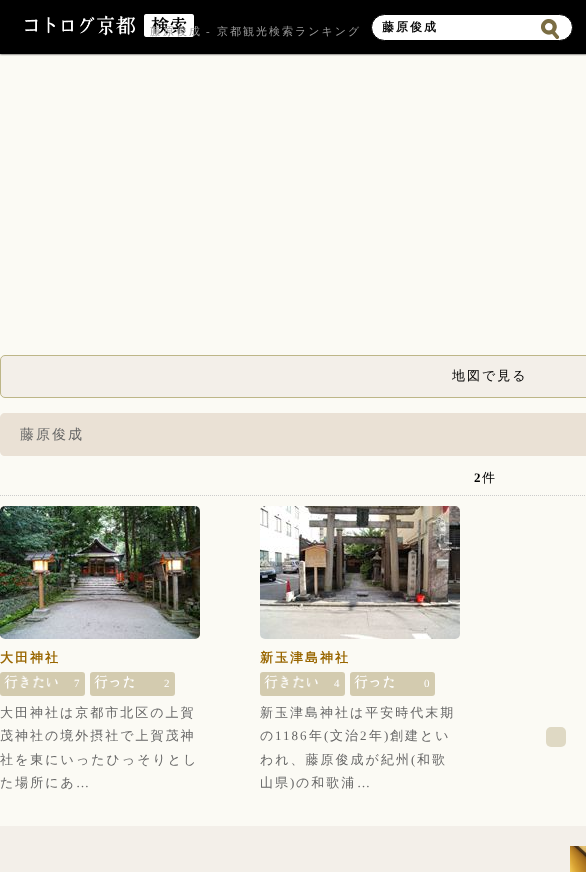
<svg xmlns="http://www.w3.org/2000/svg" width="586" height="872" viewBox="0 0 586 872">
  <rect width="100%" height="100%" fill="rgb(251,250,244)"/>
  <rect x="0" y="0" width="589" height="54" fill="rgb(0,0,0)" filter="blur(1px)"/>
  <rect x="0" y="0" width="586" height="54" fill="rgb(0,0,0)"/>
  <rect x="371.5" y="14.5" width="201" height="26" rx="13" fill="rgb(255,255,255)" stroke="rgb(0,0,0)"/>
  <text x="382" y="31" font-family="WenQuanYi Zen Hei" font-size="12" font-weight="bold" letter-spacing="2" fill="rgb(0,0,0)">藤原俊成</text>
  <image x="541" y="19" width="18" height="20" href="pic1.png"/>
  <rect x="0.5" y="355.5" width="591" height="42" rx="4.5" fill="rgb(243,239,233)" stroke="rgb(189,182,136)"/>
  <text x="452" y="380" font-family="WenQuanYi Zen Hei" font-size="13" font-weight="500" letter-spacing="2" fill="rgb(0,0,0)">地図で見る</text>
  <path d="M5 413H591V456H5C2 456 0 454 0 451V418C0 415 2 413 5 413Z" fill="rgb(234,225,213)"/>
  <text x="20" y="439" font-family="WenQuanYi Zen Hei" font-size="14" font-weight="500" letter-spacing="2" fill="rgb(102,102,102)">藤原俊成</text>
  <path d="M0 495.5H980" fill="none" stroke="rgb(204,204,204)" stroke-dasharray="1 1"/>
  <text x="474" y="482" font-family="Liberation Serif" font-size="13" font-weight="bold" letter-spacing="1" fill="rgb(0,0,0)">2</text>
  <text x="482" y="482" font-family="WenQuanYi Zen Hei" font-size="13" font-weight="500" letter-spacing="1" fill="rgb(0,0,0)">件</text>
  <image x="0" y="506" width="200" height="133" href="pic2.png"/>
  <text x="0" y="662" font-family="WenQuanYi Zen Hei" font-size="13" font-weight="bold" letter-spacing="2" fill="rgb(153,102,0)">大田神社</text>
  <rect x="0" y="672" width="85" height="24" rx="3" fill="rgb(211,203,175)"/>
  <image x="4" y="675" width="54" height="14" href="pic3.png"/>
  <text x="74" y="687" font-family="Liberation Serif" font-size="11" letter-spacing="1" fill="rgb(255,255,255)">7</text>
  <rect x="90" y="672" width="85" height="24" rx="3" fill="rgb(211,203,175)"/>
  <image x="94" y="675" width="40" height="14" href="pic4.png"/>
  <text x="164" y="687" font-family="Liberation Serif" font-size="11" letter-spacing="1" fill="rgb(255,255,255)">2</text>
  <g font-family="WenQuanYi Zen Hei" font-size="13" font-weight="500" letter-spacing="2" fill="rgb(102,102,102)">
    <text>
      <tspan x="0" y="717">大田神社は京都市北区の上賀</tspan>
      <tspan x="0" y="740">茂神社の境外摂社で上賀茂神</tspan>
      <tspan x="0" y="764">社を東にいったひっそりとし</tspan>
      <tspan x="0" y="787">た場所にあ</tspan>
    </text>
  </g>
  <text x="76" y="787" font-family="Liberation Serif" font-size="13" letter-spacing="2" fill="rgb(102,102,102)">…</text>
  <image x="260" y="506" width="200" height="133" href="pic5.png"/>
  <text x="260" y="662" font-family="WenQuanYi Zen Hei" font-size="13" font-weight="bold" letter-spacing="2" fill="rgb(153,102,0)">新玉津島神社</text>
  <rect x="260" y="672" width="85" height="24" rx="3" fill="rgb(211,203,175)"/>
  <image x="264" y="675" width="54" height="14" href="pic3.png"/>
  <text x="334" y="687" font-family="Liberation Serif" font-size="11" letter-spacing="1" fill="rgb(255,255,255)">4</text>
  <rect x="350" y="672" width="85" height="24" rx="3" fill="rgb(211,203,175)"/>
  <image x="354" y="675" width="40" height="14" href="pic4.png"/>
  <text x="424" y="687" font-family="Liberation Serif" font-size="11" letter-spacing="1" fill="rgb(255,255,255)">0</text>
  <g font-family="WenQuanYi Zen Hei" font-size="13" font-weight="500" letter-spacing="2" fill="rgb(102,102,102)">
    <text>
      <tspan x="260" y="717">新玉津島神社は平安時代末期</tspan>
      <tspan x="260" y="740">の</tspan>
    </text>
  </g>
  <text x="275" y="740" font-family="Liberation Serif" font-size="13" letter-spacing="2" fill="rgb(102,102,102)">1186</text>
  <text x="309" y="740" font-family="WenQuanYi Zen Hei" font-size="13" font-weight="500" letter-spacing="2" fill="rgb(102,102,102)">年</text>
  <text x="324" y="740" font-family="Liberation Serif" font-size="13" letter-spacing="2" fill="rgb(102,102,102)">(</text>
  <text x="330" y="740" font-family="WenQuanYi Zen Hei" font-size="13" font-weight="500" letter-spacing="2" fill="rgb(102,102,102)">文治</text>
  <text x="360" y="740" font-family="Liberation Serif" font-size="13" letter-spacing="2" fill="rgb(102,102,102)">2</text>
  <text x="369" y="740" font-family="WenQuanYi Zen Hei" font-size="13" font-weight="500" letter-spacing="2" fill="rgb(102,102,102)">年</text>
  <text x="384" y="740" font-family="Liberation Serif" font-size="13" letter-spacing="2" fill="rgb(102,102,102)">)</text>
  <g font-family="WenQuanYi Zen Hei" font-size="13" font-weight="500" letter-spacing="2" fill="rgb(102,102,102)">
    <text x="390" y="740">創建とい</text>
    <text x="260" y="764">われ、藤原俊成が紀州</text>
  </g>
  <text x="411" y="764" font-family="Liberation Serif" font-size="13" letter-spacing="2" fill="rgb(102,102,102)">(</text>
  <g font-family="WenQuanYi Zen Hei" font-size="13" font-weight="500" letter-spacing="2" fill="rgb(102,102,102)">
    <text x="417" y="764">和歌</text>
    <text x="260" y="787">山県</text>
  </g>
  <text x="290" y="787" font-family="Liberation Serif" font-size="13" letter-spacing="2" fill="rgb(102,102,102)">)</text>
  <text x="296" y="787" font-family="WenQuanYi Zen Hei" font-size="13" font-weight="500" letter-spacing="2" fill="rgb(102,102,102)">の和歌浦</text>
  <text x="357" y="787" font-family="Liberation Serif" font-size="13" letter-spacing="2" fill="rgb(102,102,102)">…</text>
  <rect x="546" y="727" width="20" height="20" rx="5" fill="rgb(223,217,196)"/>
  <image x="25" y="15" width="110" height="21" href="pic6.png"/>
  <image x="144" y="14" width="50" height="23" href="pic7.png"/>
  <text x="150" y="35" font-family="WenQuanYi Zen Hei" font-size="11" font-weight="500" letter-spacing="2" fill="rgb(153,153,153)">藤原俊成</text>
  <text x="206" y="35" font-family="Liberation Serif" font-size="11" letter-spacing="2" fill="rgb(153,153,153)">-</text>
  <text x="217" y="35" font-family="WenQuanYi Zen Hei" font-size="11" font-weight="500" letter-spacing="2" fill="rgb(153,153,153)">京都観光検索ランキング</text>
  <rect x="0" y="826" width="586" height="46" fill="rgb(243,239,233)"/>
  <image x="570" y="846" width="16" height="26" href="pic8.png"/>
</svg>
